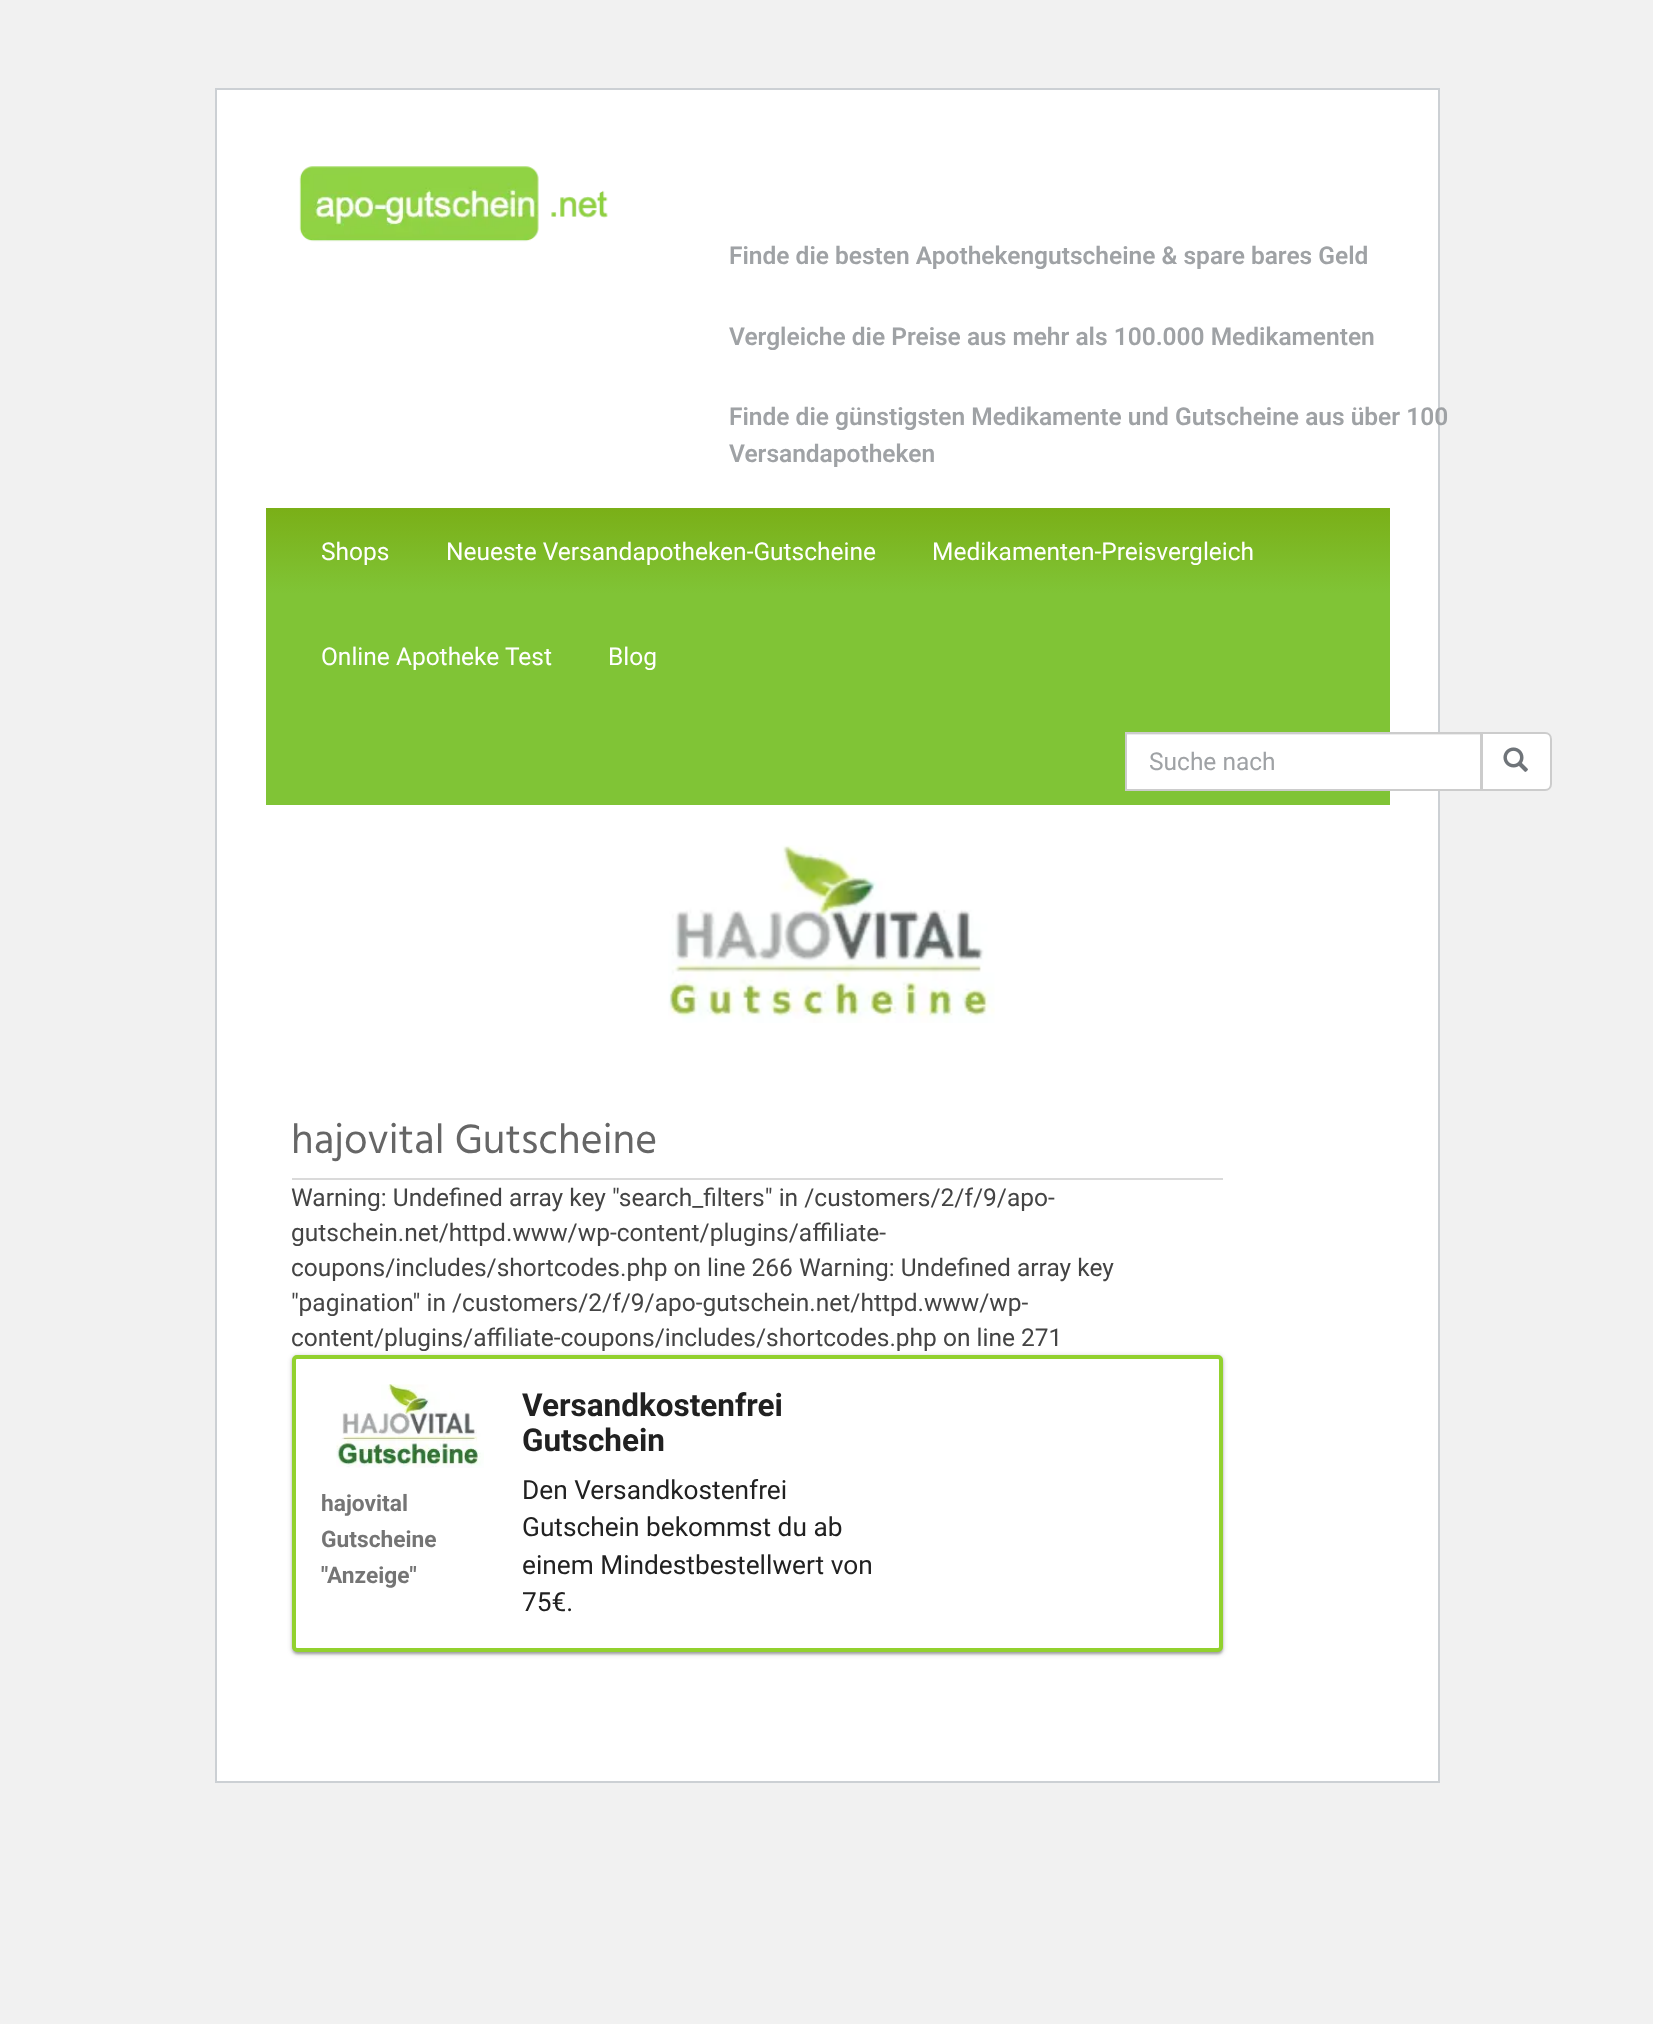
<svg xmlns="http://www.w3.org/2000/svg" width="1653" height="2024" viewBox="0 0 1653 2024">
  <defs>
    <linearGradient id="g1" gradientUnits="userSpaceOnUse" x1="828" y1="507" x2="828" y2="805"><stop offset="0" stop-color="rgb(122,175,23)"/><stop offset="0.29" stop-color="rgb(128,196,54)"/></linearGradient>
  </defs>
  <rect width="100%" height="100%" fill="rgb(241,241,241)"/>
  <rect x="216" y="89" width="1223" height="1693" fill="rgb(255,255,255)" stroke="rgb(204,208,212)" stroke-width="2"/>
  <image x="299" y="166" width="309" height="76" href="pic1.png"/>
  <g font-family="Roboto" font-size="24.5" font-weight="600" fill="rgb(159,162,165)">
    <text x="729" y="264">Finde die besten Apothekengutscheine &amp; spare bares Geld</text>
    <text x="729" y="345">Vergleiche die Preise aus mehr als 100.000 Medikamenten</text>
    <text>
      <tspan x="729" y="425">Finde die günstigsten Medikamente und Gutscheine aus über 100</tspan>
      <tspan x="729" y="462">Versandapotheken</tspan>
    </text>
  </g>
  <rect x="266" y="508" width="1124" height="297" fill="url(#g1)"/>
  <g font-family="Roboto" font-size="24.5" fill="rgb(255,255,255)">
    <text x="321" y="560">Shops</text>
    <text x="446" y="560">Neueste Versandapotheken-Gutscheine</text>
    <text x="932" y="560">Medikamenten-Preisvergleich</text>
    <text x="321" y="665">Online Apotheke Test</text>
    <text x="608" y="665">Blog</text>
  </g>
  <rect x="1127" y="735" width="353" height="54" fill="rgb(255,255,255)"/>
  <rect x="1127" y="734" width="354" height="1" fill="rgb(236,236,236)"/>
  <rect x="1126" y="733" width="355" height="57" fill="none" stroke="rgb(204,204,204)" stroke-width="2"/>
  <text x="1149" y="770" font-family="Roboto" font-size="24.5" fill="rgb(159,162,165)">Suche nach</text>
  <path d="M1482 733H1545C1548.5 733 1551 735.5 1551 739V784C1551 787.5 1548.5 790 1545 790H1482Z" fill="rgb(255,255,255)" stroke="rgb(204,204,204)" stroke-width="2"/>
  <image x="1503" y="747" width="25" height="25" href="pic2.png"/>
  <image x="668" y="845" width="327" height="178" href="pic3.png"/>
  <rect x="292" y="1178" width="931" height="2" fill="rgb(218,218,218)"/>
  <text x="291" y="1153" font-family="Hind" font-size="42" fill="rgb(102,102,102)">hajovital Gutscheine</text>
  <g font-family="Roboto" font-size="24.5" fill="rgb(68,68,68)">
    <text>
      <tspan x="291" y="1206">Warning: Undefined array key "search_filters" in /customers/2/f/9/apo-</tspan>
      <tspan x="291" y="1241">gutschein.net/httpd.www/wp-content/plugins/affiliate-</tspan>
      <tspan x="291" y="1276">coupons/includes/shortcodes.php on line 266 Warning: Undefined array key</tspan>
      <tspan x="291" y="1311">"pagination" in /customers/2/f/9/apo-gutschein.net/httpd.www/wp-</tspan>
      <tspan x="291" y="1346">content/plugins/affiliate-coupons/includes/shortcodes.php on line 271</tspan>
    </text>
  </g>
  <rect x="294" y="1360" width="928" height="294" rx="4" fill="rgba(0,0,0,0.12)" filter="blur(1px)"/>
  <rect x="292" y="1356" width="931" height="298" rx="5" fill="rgba(0,0,0,0.14)" filter="blur(1px)"/>
  <rect x="292" y="1356" width="931" height="298" rx="5" fill="rgba(0,0,0,0.2)" filter="blur(2.5px)"/>
  <rect x="294" y="1357" width="927" height="293" rx="3" fill="rgb(255,255,255)" stroke="rgb(146,209,46)" stroke-width="4"/>
  <image x="336" y="1384" width="148" height="84" href="pic4.png"/>
  <g font-family="Roboto" font-size="22.75" font-weight="bold" fill="rgb(117,117,117)">
    <text>
      <tspan x="321" y="1511">hajovital</tspan>
      <tspan x="321" y="1547">Gutscheine</tspan>
      <tspan x="321" y="1583">"Anzeige"</tspan>
    </text>
  </g>
  <g font-family="Roboto" font-size="31.5" font-weight="bold" fill="rgb(33,33,33)">
    <text>
      <tspan x="522" y="1416">Versandkostenfrei</tspan>
      <tspan x="522" y="1451">Gutschein</tspan>
    </text>
  </g>
  <g font-family="Roboto" font-size="26.25" fill="rgb(33,33,33)">
    <text>
      <tspan x="522" y="1499">Den Versandkostenfrei</tspan>
      <tspan x="522" y="1536">Gutschein bekommst du ab</tspan>
      <tspan x="522" y="1574">einem Mindestbestellwert von</tspan>
      <tspan x="522" y="1611">75€.</tspan>
    </text>
  </g>
</svg>
